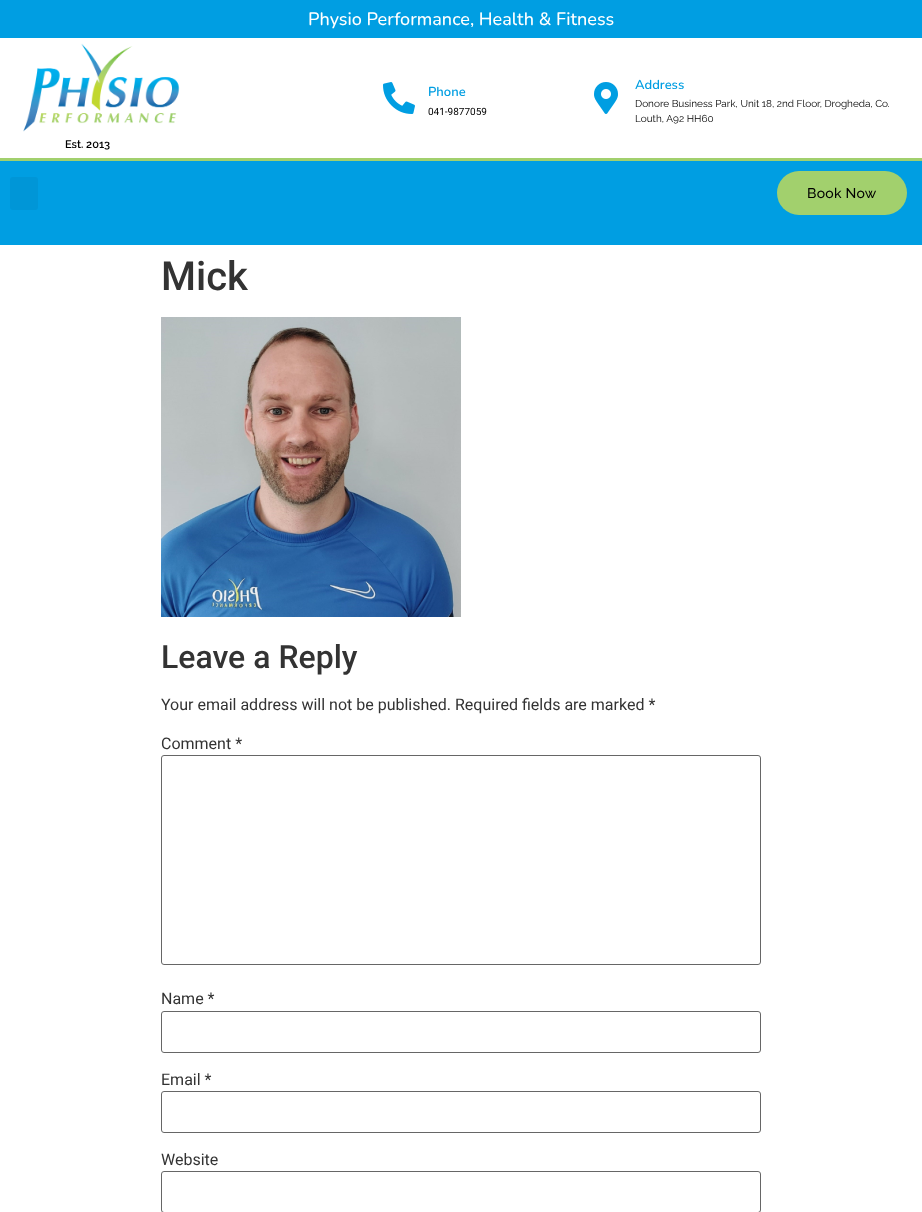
<svg xmlns="http://www.w3.org/2000/svg" width="922" height="1212" viewBox="0 0 922 1212">
  <rect width="100%" height="100%" fill="rgb(255,255,255)"/>
  <rect x="0" y="0" width="922" height="38" fill="rgb(0,158,226)"/>
  <text x="308" y="25" font-family="Nunito" font-size="18" font-weight="500" fill="rgb(255,255,255)">Physio Performance, Health &amp; Fitness</text>
  <image x="383" y="82" width="32" height="32" href="pic1.png"/>
  <text x="428" y="96" font-family="Nunito" font-size="13" font-weight="600" fill="rgb(0,158,226)">Phone</text>
  <text x="428" y="115" font-family="Roboto" font-size="10" fill="rgb(0,0,0)">041-9877059</text>
  <image x="594" y="82" width="24" height="32" href="pic2.png"/>
  <text x="635" y="89" font-family="Nunito" font-size="13" font-weight="600" fill="rgb(0,158,226)">Address</text>
  <g font-family="Raleway" font-size="10" fill="rgb(0,0,0)">
    <text>
      <tspan x="635" y="107">Donore Business Park, Unit 18, 2nd Floor, Drogheda, Co.</tspan>
      <tspan x="635" y="122">Louth, A92 HH60</tspan>
    </text>
  </g>
  <image x="23" y="43" width="157" height="89" href="pic3.png"/>
  <text x="65" y="148" font-family="Raleway" font-size="11" font-weight="600" fill="rgb(0,0,0)">Est. 2013</text>
  <rect x="0" y="161" width="922" height="84" fill="rgb(0,158,226)"/>
  <rect x="0" y="158" width="922" height="3" fill="rgb(162,208,109)"/>
  <rect x="10" y="177" width="28" height="33" rx="3" fill="rgb(0,150,215)"/>
  <rect x="777" y="171" width="130" height="44" rx="22" fill="rgb(162,208,109)"/>
  <text x="807" y="198" font-family="Raleway" font-size="14" font-weight="500" letter-spacing="0.25" fill="rgb(0,0,0)">Book Now</text>
  <text x="161" y="290" font-family="Roboto" font-size="40" font-weight="500" fill="rgb(51,51,51)">Mick</text>
  <image x="161" y="317" width="300" height="300" href="pic4.png"/>
  <text x="161" y="668" font-family="Roboto" font-size="32" font-weight="500" fill="rgb(51,51,51)">Leave a Reply</text>
  <g font-family="Roboto" font-size="16" fill="rgb(51,51,51)">
    <text x="161" y="710">Your email address will not be published. Required fields are marked *</text>
    <text x="161" y="749">Comment *</text>
  </g>
  <rect x="161.5" y="755.5" width="599" height="209" rx="2.5" fill="none" stroke="rgb(102,102,102)"/>
  <text x="161" y="1004" font-family="Roboto" font-size="16" fill="rgb(51,51,51)">Name *</text>
  <rect x="161.5" y="1011.5" width="599" height="41" rx="2.5" fill="none" stroke="rgb(102,102,102)"/>
  <text x="161" y="1085" font-family="Roboto" font-size="16" fill="rgb(51,51,51)">Email *</text>
  <rect x="161.5" y="1091.5" width="599" height="41" rx="2.5" fill="none" stroke="rgb(102,102,102)"/>
  <text x="161" y="1165" font-family="Roboto" font-size="16" fill="rgb(51,51,51)">Website</text>
  <rect x="161.5" y="1171.5" width="599" height="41" rx="2.5" fill="none" stroke="rgb(102,102,102)"/>
</svg>
